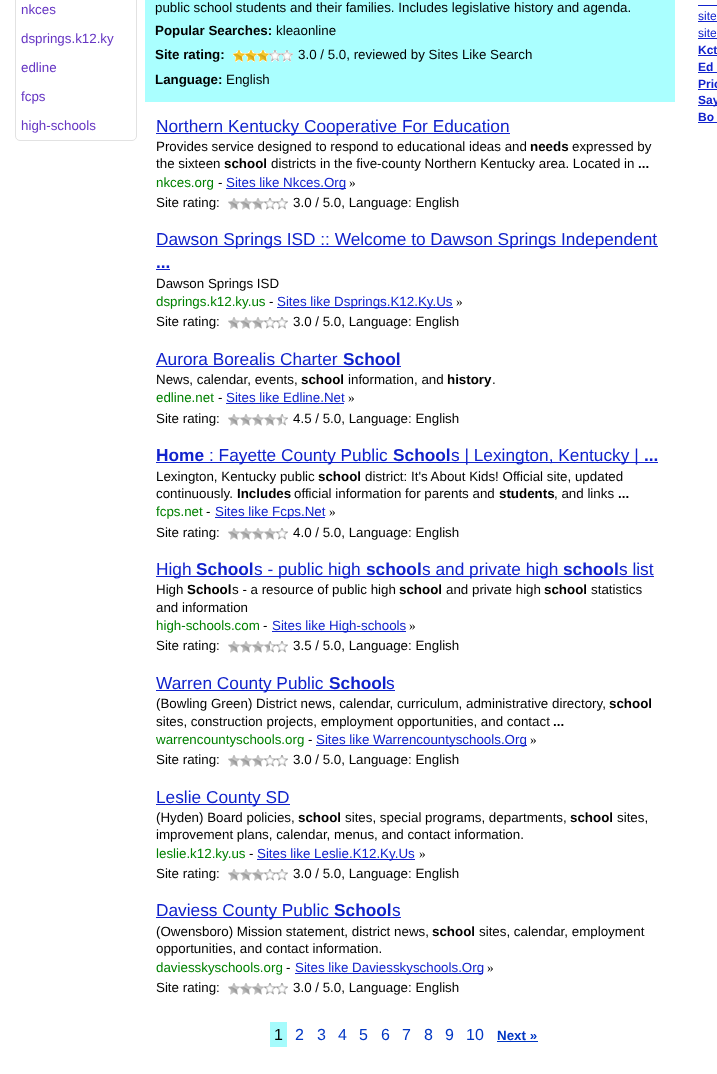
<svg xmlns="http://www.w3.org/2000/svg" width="717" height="1074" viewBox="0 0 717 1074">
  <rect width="100%" height="100%" fill="rgb(255,255,255)"/>
  <rect x="15.5" y="-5.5" width="121" height="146" rx="4.5" fill="none" stroke="rgb(226,226,226)"/>
  <g font-family="Liberation Sans" font-size="13.35" fill="rgb(102,54,195)">
    <text x="21" y="14">nkces</text>
    <text x="21" y="43">dsprings.k12.ky</text>
    <text x="21" y="72">edline</text>
    <text x="21" y="101">fcps</text>
    <text x="21" y="130">high-schools</text>
  </g>
  <rect x="145" y="0" width="530" height="102" fill="rgb(170,255,255)"/>
  <text x="155" y="12" font-family="Liberation Sans" font-size="13.35" fill="rgb(0,0,0)">public school students and their families. Includes legislative history and agenda.</text>
  <text x="155" y="35" font-family="Liberation Sans" font-size="13.35" font-weight="bold" fill="rgb(0,0,0)">Popular Searches:</text>
  <text x="276" y="35" font-family="Liberation Sans" font-size="13.35" fill="rgb(0,0,0)">kleaonline</text>
  <text x="155" y="59" font-family="Liberation Sans" font-size="13.35" font-weight="bold" fill="rgb(0,0,0)">Site rating:</text>
  <image x="269" y="50" width="24" height="12" href="pic1.png"/>
  <image x="233" y="50" width="36" height="12" href="pic2.png"/>
  <text x="298" y="59" font-family="Liberation Sans" font-size="13.35" fill="rgb(0,0,0)">3.0 / 5.0, reviewed by Sites Like Search</text>
  <text x="155" y="84" font-family="Liberation Sans" font-size="13.35" font-weight="bold" fill="rgb(0,0,0)">Language:</text>
  <text x="226" y="84" font-family="Liberation Sans" font-size="13.35" fill="rgb(0,0,0)">English</text>
  <rect x="156" y="133" width="354" height="1" fill="rgb(17,34,204)"/>
  <text x="156" y="132" font-family="Liberation Sans" font-size="17.3" fill="rgb(17,34,204)">Northern Kentucky Cooperative For Education</text>
  <text x="156" y="151" font-family="Liberation Sans" font-size="13.35" fill="rgb(0,0,0)">Provides service designed to respond to educational ideas and</text>
  <text x="530" y="151" font-family="Liberation Sans" font-size="13.35" font-weight="bold" fill="rgb(0,0,0)">needs</text>
  <g font-family="Liberation Sans" font-size="13.35" fill="rgb(0,0,0)">
    <text x="572" y="151">expressed by</text>
    <text x="156" y="168">the sixteen</text>
  </g>
  <text x="224" y="168" font-family="Liberation Sans" font-size="13.35" font-weight="bold" fill="rgb(0,0,0)">school</text>
  <text x="271" y="168" font-family="Liberation Sans" font-size="13.35" fill="rgb(0,0,0)">districts in the five-county Northern Kentucky area. Located in</text>
  <text x="638" y="168" font-family="Liberation Sans" font-size="13.35" font-weight="bold" fill="rgb(0,0,0)">...</text>
  <text x="156" y="187" font-family="Liberation Sans" font-size="13.35" fill="rgb(0,128,0)">nkces.org</text>
  <text x="218" y="187" font-family="Liberation Sans" font-size="13.35" fill="rgb(0,0,0)">-</text>
  <rect x="226" y="188" width="120" height="1" fill="rgb(17,34,204)"/>
  <text x="226" y="187" font-family="Liberation Sans" font-size="13.35" fill="rgb(17,34,204)">Sites like Nkces.Org</text>
  <text x="349" y="187" font-family="Liberation Serif" font-size="13.35" fill="rgb(0,0,0)">»</text>
  <text x="156" y="207" font-family="Liberation Sans" font-size="13.35" fill="rgb(0,0,0)">Site rating:</text>
  <image x="264" y="198" width="24" height="12" href="pic3.png"/>
  <image x="228" y="198" width="36" height="12" href="pic4.png"/>
  <text x="293" y="207" font-family="Liberation Sans" font-size="13.35" fill="rgb(0,0,0)">3.0 / 5.0, Language: English</text>
  <rect x="156" y="246" width="502" height="1" fill="rgb(17,34,204)"/>
  <text x="156" y="245" font-family="Liberation Sans" font-size="17.3" fill="rgb(17,34,204)">Dawson Springs ISD :: Welcome to Dawson Springs Independent</text>
  <text x="156" y="268" font-family="Liberation Sans" font-size="17.3" font-weight="bold" fill="rgb(17,34,204)">...</text>
  <rect x="156" y="269" width="14" height="1" fill="rgb(17,34,204)"/>
  <text x="156" y="288" font-family="Liberation Sans" font-size="13.35" fill="rgb(0,0,0)">Dawson Springs ISD</text>
  <text x="156" y="306" font-family="Liberation Sans" font-size="13.35" fill="rgb(0,128,0)">dsprings.k12.ky.us</text>
  <text x="269" y="306" font-family="Liberation Sans" font-size="13.35" fill="rgb(0,0,0)">-</text>
  <rect x="277" y="307" width="176" height="1" fill="rgb(17,34,204)"/>
  <text x="277" y="306" font-family="Liberation Sans" font-size="13.35" fill="rgb(17,34,204)">Sites like Dsprings.K12.Ky.Us</text>
  <text x="456" y="306" font-family="Liberation Serif" font-size="13.35" fill="rgb(0,0,0)">»</text>
  <text x="156" y="326" font-family="Liberation Sans" font-size="13.35" fill="rgb(0,0,0)">Site rating:</text>
  <image x="264" y="317" width="24" height="12" href="pic3.png"/>
  <image x="228" y="317" width="36" height="12" href="pic4.png"/>
  <text x="293" y="326" font-family="Liberation Sans" font-size="13.35" fill="rgb(0,0,0)">3.0 / 5.0, Language: English</text>
  <text x="156" y="365" font-family="Liberation Sans" font-size="17.3" fill="rgb(17,34,204)">Aurora Borealis Charter</text>
  <rect x="156" y="366" width="245" height="1" fill="rgb(17,34,204)"/>
  <text x="343" y="365" font-family="Liberation Sans" font-size="17.3" font-weight="bold" fill="rgb(17,34,204)">School</text>
  <text x="156" y="384" font-family="Liberation Sans" font-size="13.35" fill="rgb(0,0,0)">News, calendar, events,</text>
  <text x="301" y="384" font-family="Liberation Sans" font-size="13.35" font-weight="bold" fill="rgb(0,0,0)">school</text>
  <text x="348" y="384" font-family="Liberation Sans" font-size="13.35" fill="rgb(0,0,0)">information, and</text>
  <text x="447" y="384" font-family="Liberation Sans" font-size="13.35" font-weight="bold" fill="rgb(0,0,0)">history</text>
  <text x="492" y="384" font-family="Liberation Sans" font-size="13.35" fill="rgb(0,0,0)">.</text>
  <text x="156" y="402" font-family="Liberation Sans" font-size="13.35" fill="rgb(0,128,0)">edline.net</text>
  <text x="218" y="402" font-family="Liberation Sans" font-size="13.35" fill="rgb(0,0,0)">-</text>
  <text x="226" y="402" font-family="Liberation Sans" font-size="13.35" fill="rgb(17,34,204)">Sites like Edline.Net</text>
  <rect x="226" y="403" width="118" height="1" fill="rgb(17,34,204)"/>
  <text x="348" y="402" font-family="Liberation Serif" font-size="13.35" fill="rgb(0,0,0)">»</text>
  <text x="156" y="423" font-family="Liberation Sans" font-size="13.35" fill="rgb(0,0,0)">Site rating:</text>
  <image x="282" y="414" width="6" height="12" href="pic5.png"/>
  <image x="228" y="414" width="54" height="12" href="pic6.png"/>
  <text x="293" y="423" font-family="Liberation Sans" font-size="13.35" fill="rgb(0,0,0)">4.5 / 5.0, Language: English</text>
  <text x="156" y="461" font-family="Liberation Sans" font-size="17.3" font-weight="bold" fill="rgb(17,34,204)">Home</text>
  <rect x="156" y="462" width="502" height="1" fill="rgb(17,34,204)"/>
  <text x="209" y="461" font-family="Liberation Sans" font-size="17.3" fill="rgb(17,34,204)">: Fayette County Public</text>
  <text x="393" y="461" font-family="Liberation Sans" font-size="17.3" font-weight="bold" fill="rgb(17,34,204)">School</text>
  <text x="451" y="461" font-family="Liberation Sans" font-size="17.3" fill="rgb(17,34,204)">s | Lexington, Kentucky |</text>
  <text x="644" y="461" font-family="Liberation Sans" font-size="17.3" font-weight="bold" fill="rgb(17,34,204)">...</text>
  <text x="156" y="481" font-family="Liberation Sans" font-size="13.35" fill="rgb(0,0,0)">Lexington, Kentucky public</text>
  <text x="318" y="481" font-family="Liberation Sans" font-size="13.35" font-weight="bold" fill="rgb(0,0,0)">school</text>
  <g font-family="Liberation Sans" font-size="13.35" fill="rgb(0,0,0)">
    <text x="365" y="481">district: It's About Kids! Official site, updated</text>
    <text x="156" y="498">continuously.</text>
  </g>
  <text x="237" y="498" font-family="Liberation Sans" font-size="13.35" font-weight="bold" fill="rgb(0,0,0)">Includes</text>
  <text x="294" y="498" font-family="Liberation Sans" font-size="13.35" fill="rgb(0,0,0)">official information for parents and</text>
  <text x="499" y="498" font-family="Liberation Sans" font-size="13.35" font-weight="bold" fill="rgb(0,0,0)">students</text>
  <text x="554" y="498" font-family="Liberation Sans" font-size="13.35" fill="rgb(0,0,0)">, and links</text>
  <text x="618" y="498" font-family="Liberation Sans" font-size="13.35" font-weight="bold" fill="rgb(0,0,0)">...</text>
  <text x="156" y="516" font-family="Liberation Sans" font-size="13.35" fill="rgb(0,128,0)">fcps.net</text>
  <text x="206" y="516" font-family="Liberation Sans" font-size="13.35" fill="rgb(0,0,0)">-</text>
  <rect x="215" y="517" width="110" height="1" fill="rgb(17,34,204)"/>
  <text x="215" y="516" font-family="Liberation Sans" font-size="13.35" fill="rgb(17,34,204)">Sites like Fcps.Net</text>
  <text x="329" y="516" font-family="Liberation Serif" font-size="13.35" fill="rgb(0,0,0)">»</text>
  <text x="156" y="537" font-family="Liberation Sans" font-size="13.35" fill="rgb(0,0,0)">Site rating:</text>
  <image x="276" y="528" width="12" height="12" href="pic7.png"/>
  <image x="228" y="528" width="48" height="12" href="pic8.png"/>
  <text x="293" y="537" font-family="Liberation Sans" font-size="13.35" fill="rgb(0,0,0)">4.0 / 5.0, Language: English</text>
  <rect x="156" y="576" width="498" height="1" fill="rgb(17,34,204)"/>
  <text x="156" y="575" font-family="Liberation Sans" font-size="17.3" fill="rgb(17,34,204)">High</text>
  <text x="196" y="575" font-family="Liberation Sans" font-size="17.3" font-weight="bold" fill="rgb(17,34,204)">School</text>
  <text x="254" y="575" font-family="Liberation Sans" font-size="17.3" fill="rgb(17,34,204)">s - public high</text>
  <text x="366" y="575" font-family="Liberation Sans" font-size="17.3" font-weight="bold" fill="rgb(17,34,204)">school</text>
  <text x="422" y="575" font-family="Liberation Sans" font-size="17.3" fill="rgb(17,34,204)">s and private high</text>
  <text x="563" y="575" font-family="Liberation Sans" font-size="17.3" font-weight="bold" fill="rgb(17,34,204)">school</text>
  <text x="619" y="575" font-family="Liberation Sans" font-size="17.3" fill="rgb(17,34,204)">s list</text>
  <text x="156" y="594" font-family="Liberation Sans" font-size="13.35" fill="rgb(0,0,0)">High</text>
  <text x="187" y="594" font-family="Liberation Sans" font-size="13.35" font-weight="bold" fill="rgb(0,0,0)">School</text>
  <text x="232" y="594" font-family="Liberation Sans" font-size="13.35" fill="rgb(0,0,0)">s - a resource of public high</text>
  <text x="399" y="594" font-family="Liberation Sans" font-size="13.35" font-weight="bold" fill="rgb(0,0,0)">school</text>
  <text x="446" y="594" font-family="Liberation Sans" font-size="13.35" fill="rgb(0,0,0)">and private high</text>
  <text x="544" y="594" font-family="Liberation Sans" font-size="13.35" font-weight="bold" fill="rgb(0,0,0)">school</text>
  <g font-family="Liberation Sans" font-size="13.35" fill="rgb(0,0,0)">
    <text x="591" y="594">statistics</text>
    <text x="156" y="612">and information</text>
  </g>
  <text x="156" y="630" font-family="Liberation Sans" font-size="13.35" fill="rgb(0,128,0)">high-schools.com</text>
  <text x="263" y="630" font-family="Liberation Sans" font-size="13.35" fill="rgb(0,0,0)">-</text>
  <rect x="272" y="631" width="134" height="1" fill="rgb(17,34,204)"/>
  <text x="272" y="630" font-family="Liberation Sans" font-size="13.35" fill="rgb(17,34,204)">Sites like High-schools</text>
  <text x="409" y="630" font-family="Liberation Serif" font-size="13.35" fill="rgb(0,0,0)">»</text>
  <text x="156" y="650" font-family="Liberation Sans" font-size="13.35" fill="rgb(0,0,0)">Site rating:</text>
  <image x="270" y="641" width="18" height="12" href="pic9.png"/>
  <image x="228" y="641" width="42" height="12" href="pic10.png"/>
  <text x="293" y="650" font-family="Liberation Sans" font-size="13.35" fill="rgb(0,0,0)">3.5 / 5.0, Language: English</text>
  <rect x="156" y="690" width="239" height="1" fill="rgb(17,34,204)"/>
  <text x="156" y="689" font-family="Liberation Sans" font-size="17.3" fill="rgb(17,34,204)">Warren County Public</text>
  <text x="329" y="689" font-family="Liberation Sans" font-size="17.3" font-weight="bold" fill="rgb(17,34,204)">School</text>
  <text x="386" y="689" font-family="Liberation Sans" font-size="17.3" fill="rgb(17,34,204)">s</text>
  <text x="156" y="708" font-family="Liberation Sans" font-size="13.35" fill="rgb(0,0,0)">(Bowling Green) District news, calendar, curriculum, administrative directory,</text>
  <text x="609" y="708" font-family="Liberation Sans" font-size="13.35" font-weight="bold" fill="rgb(0,0,0)">school</text>
  <text x="156" y="726" font-family="Liberation Sans" font-size="13.35" fill="rgb(0,0,0)">sites, construction projects, employment opportunities, and contact</text>
  <text x="553" y="726" font-family="Liberation Sans" font-size="13.35" font-weight="bold" fill="rgb(0,0,0)">...</text>
  <text x="156" y="744" font-family="Liberation Sans" font-size="13.35" fill="rgb(0,128,0)">warrencountyschools.org</text>
  <text x="308" y="744" font-family="Liberation Sans" font-size="13.35" fill="rgb(0,0,0)">-</text>
  <rect x="316" y="745" width="211" height="1" fill="rgb(17,34,204)"/>
  <text x="316" y="744" font-family="Liberation Sans" font-size="13.35" fill="rgb(17,34,204)">Sites like Warrencountyschools.Org</text>
  <text x="530" y="744" font-family="Liberation Serif" font-size="13.35" fill="rgb(0,0,0)">»</text>
  <text x="156" y="764" font-family="Liberation Sans" font-size="13.35" fill="rgb(0,0,0)">Site rating:</text>
  <image x="264" y="755" width="24" height="12" href="pic3.png"/>
  <image x="228" y="755" width="36" height="12" href="pic4.png"/>
  <text x="293" y="764" font-family="Liberation Sans" font-size="13.35" fill="rgb(0,0,0)">3.0 / 5.0, Language: English</text>
  <rect x="156" y="804" width="134" height="1" fill="rgb(17,34,204)"/>
  <text x="156" y="803" font-family="Liberation Sans" font-size="17.3" fill="rgb(17,34,204)">Leslie County SD</text>
  <text x="156" y="822" font-family="Liberation Sans" font-size="13.35" fill="rgb(0,0,0)">(Hyden) Board policies,</text>
  <text x="298" y="822" font-family="Liberation Sans" font-size="13.35" font-weight="bold" fill="rgb(0,0,0)">school</text>
  <text x="345" y="822" font-family="Liberation Sans" font-size="13.35" fill="rgb(0,0,0)">sites, special programs, departments,</text>
  <text x="570" y="822" font-family="Liberation Sans" font-size="13.35" font-weight="bold" fill="rgb(0,0,0)">school</text>
  <g font-family="Liberation Sans" font-size="13.35" fill="rgb(0,0,0)">
    <text x="617" y="822">sites,</text>
    <text x="156" y="839">improvement plans, calendar, menus, and contact information.</text>
  </g>
  <text x="156" y="858" font-family="Liberation Sans" font-size="13.35" fill="rgb(0,128,0)">leslie.k12.ky.us</text>
  <text x="249" y="858" font-family="Liberation Sans" font-size="13.35" fill="rgb(0,0,0)">-</text>
  <rect x="257" y="859" width="158" height="1" fill="rgb(17,34,204)"/>
  <text x="257" y="858" font-family="Liberation Sans" font-size="13.35" fill="rgb(17,34,204)">Sites like Leslie.K12.Ky.Us</text>
  <text x="419" y="858" font-family="Liberation Serif" font-size="13.35" fill="rgb(0,0,0)">»</text>
  <text x="156" y="878" font-family="Liberation Sans" font-size="13.35" fill="rgb(0,0,0)">Site rating:</text>
  <image x="264" y="869" width="24" height="12" href="pic3.png"/>
  <image x="228" y="869" width="36" height="12" href="pic4.png"/>
  <text x="293" y="878" font-family="Liberation Sans" font-size="13.35" fill="rgb(0,0,0)">3.0 / 5.0, Language: English</text>
  <rect x="156" y="917" width="245" height="1" fill="rgb(17,34,204)"/>
  <text x="156" y="916" font-family="Liberation Sans" font-size="17.3" fill="rgb(17,34,204)">Daviess County Public</text>
  <text x="334" y="916" font-family="Liberation Sans" font-size="17.3" font-weight="bold" fill="rgb(17,34,204)">School</text>
  <text x="392" y="916" font-family="Liberation Sans" font-size="17.3" fill="rgb(17,34,204)">s</text>
  <text x="156" y="936" font-family="Liberation Sans" font-size="13.35" fill="rgb(0,0,0)">(Owensboro) Mission statement, district news,</text>
  <text x="432" y="936" font-family="Liberation Sans" font-size="13.35" font-weight="bold" fill="rgb(0,0,0)">school</text>
  <g font-family="Liberation Sans" font-size="13.35" fill="rgb(0,0,0)">
    <text x="479" y="936">sites, calendar, employment</text>
    <text x="156" y="953">opportunities, and contact information.</text>
  </g>
  <text x="156" y="972" font-family="Liberation Sans" font-size="13.35" fill="rgb(0,128,0)">daviesskyschools.org</text>
  <text x="286" y="972" font-family="Liberation Sans" font-size="13.35" fill="rgb(0,0,0)">-</text>
  <rect x="295" y="973" width="188" height="1" fill="rgb(17,34,204)"/>
  <text x="295" y="972" font-family="Liberation Sans" font-size="13.35" fill="rgb(17,34,204)">Sites like Daviesskyschools.Org</text>
  <text x="487" y="972" font-family="Liberation Serif" font-size="13.35" fill="rgb(0,0,0)">»</text>
  <text x="156" y="992" font-family="Liberation Sans" font-size="13.35" fill="rgb(0,0,0)">Site rating:</text>
  <image x="264" y="983" width="24" height="12" href="pic3.png"/>
  <image x="228" y="983" width="36" height="12" href="pic4.png"/>
  <text x="293" y="992" font-family="Liberation Sans" font-size="13.35" fill="rgb(0,0,0)">3.0 / 5.0, Language: English</text>
  <rect x="270" y="1022" width="17" height="25" fill="rgb(165,251,252)"/>
  <text x="274" y="1040" font-family="Liberation Sans" font-size="16" fill="rgb(0,0,0)">1</text>
  <g font-family="Liberation Sans" font-size="16" fill="rgb(0,54,195)">
    <text x="295" y="1040">2</text>
    <text x="317" y="1040">3</text>
    <text x="338" y="1040">4</text>
    <text x="359" y="1040">5</text>
    <text x="381" y="1040">6</text>
    <text x="402" y="1040">7</text>
    <text x="424" y="1040">8</text>
    <text x="445" y="1040">9</text>
    <text x="466" y="1040">10</text>
  </g>
  <text x="497" y="1040" font-family="Liberation Sans" font-size="13.35" font-weight="bold" fill="rgb(0,54,195)">Next »</text>
  <rect x="497" y="1041" width="41" height="1" fill="rgb(0,54,195)"/>
  <rect x="698" y="5" width="19" height="1" fill="rgb(17,34,204)"/>
  <text x="698" y="20" font-family="Liberation Sans" font-size="12" fill="rgb(17,34,204)">site</text>
  <rect x="698" y="21" width="19" height="1" fill="rgb(17,34,204)"/>
  <text x="698" y="37" font-family="Liberation Sans" font-size="12" fill="rgb(17,34,204)">site</text>
  <rect x="698" y="38" width="19" height="1" fill="rgb(17,34,204)"/>
  <text x="698" y="54" font-family="Liberation Sans" font-size="12" font-weight="bold" fill="rgb(17,34,204)">Kct</text>
  <rect x="698" y="55" width="19" height="1" fill="rgb(17,34,204)"/>
  <text x="698" y="71" font-family="Liberation Sans" font-size="12" font-weight="bold" fill="rgb(17,34,204)">Ed</text>
  <rect x="698" y="72" width="19" height="1" fill="rgb(17,34,204)"/>
  <text x="698" y="88" font-family="Liberation Sans" font-size="12" font-weight="bold" fill="rgb(17,34,204)">Pric</text>
  <rect x="698" y="89" width="19" height="1" fill="rgb(17,34,204)"/>
  <rect x="698" y="105" width="19" height="1" fill="rgb(17,34,204)"/>
  <g font-family="Liberation Sans" font-size="12" font-weight="bold" fill="rgb(17,34,204)">
    <text>
      <tspan x="698" y="104">Say</tspan>
      <tspan x="698" y="121">Bo</tspan>
    </text>
  </g>
  <rect x="698" y="122" width="19" height="1" fill="rgb(17,34,204)"/>
</svg>
